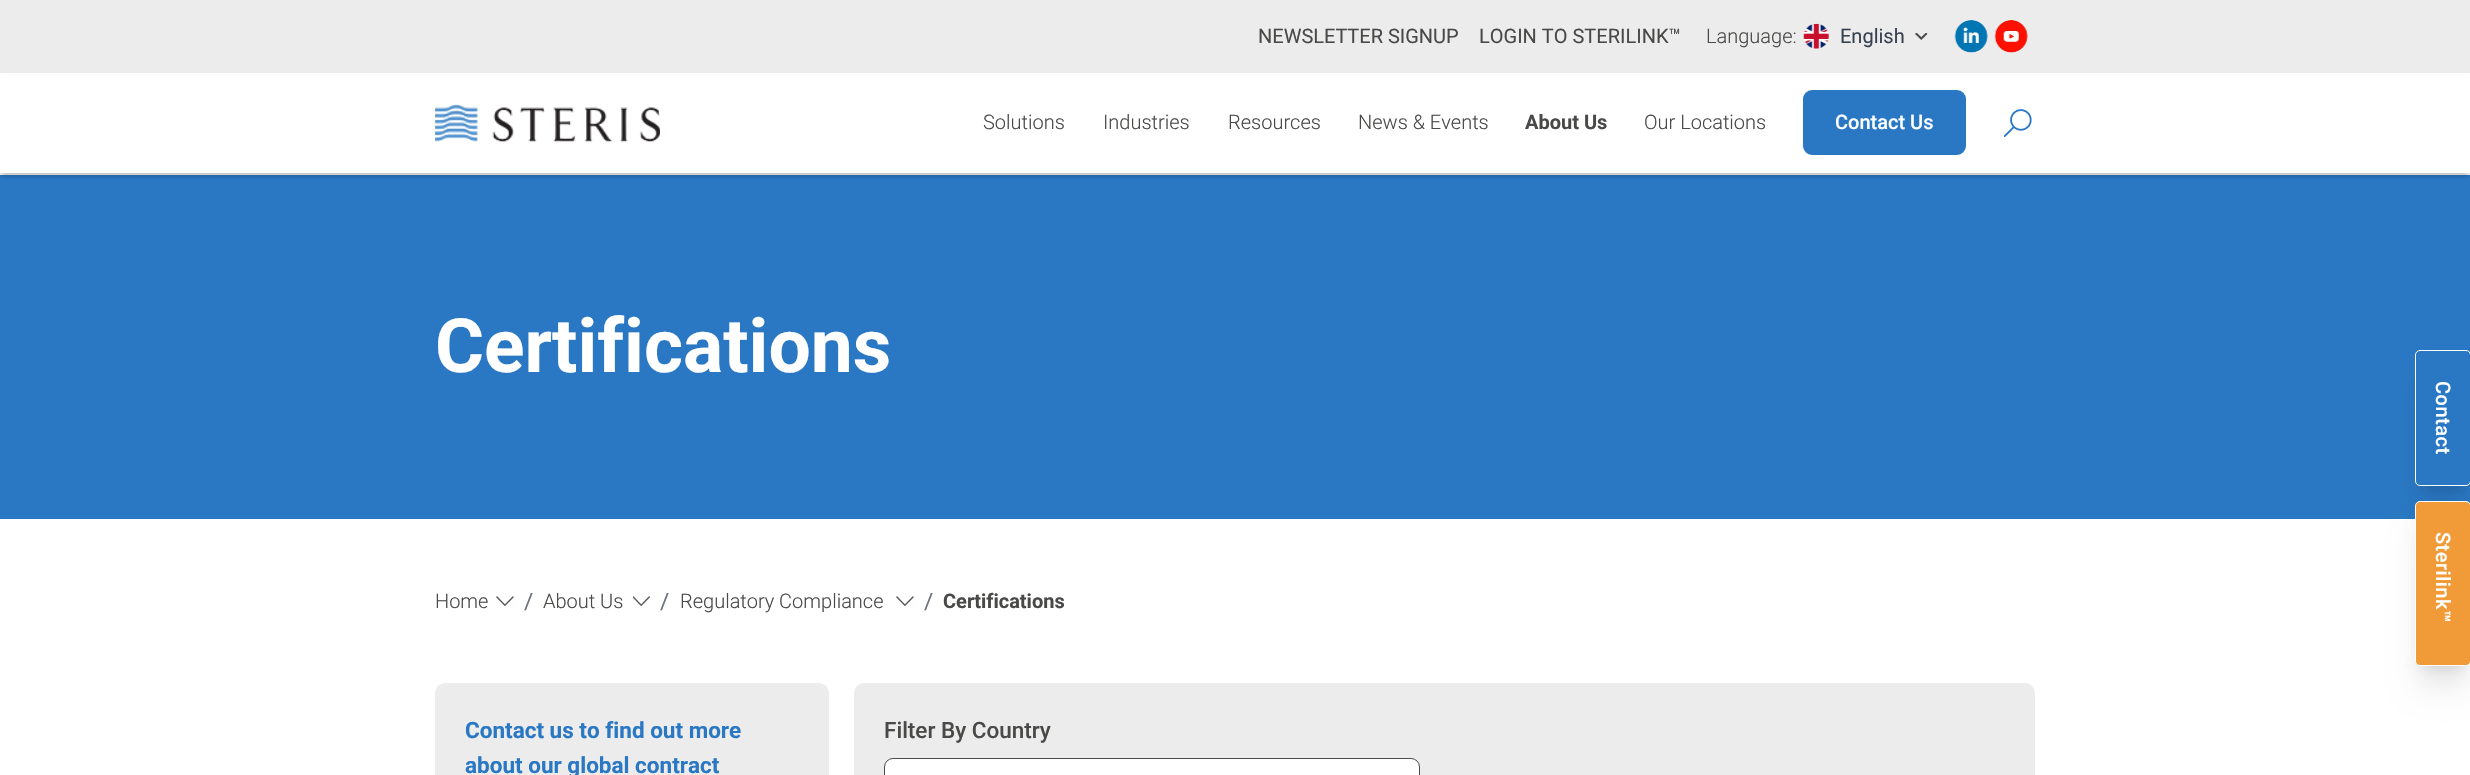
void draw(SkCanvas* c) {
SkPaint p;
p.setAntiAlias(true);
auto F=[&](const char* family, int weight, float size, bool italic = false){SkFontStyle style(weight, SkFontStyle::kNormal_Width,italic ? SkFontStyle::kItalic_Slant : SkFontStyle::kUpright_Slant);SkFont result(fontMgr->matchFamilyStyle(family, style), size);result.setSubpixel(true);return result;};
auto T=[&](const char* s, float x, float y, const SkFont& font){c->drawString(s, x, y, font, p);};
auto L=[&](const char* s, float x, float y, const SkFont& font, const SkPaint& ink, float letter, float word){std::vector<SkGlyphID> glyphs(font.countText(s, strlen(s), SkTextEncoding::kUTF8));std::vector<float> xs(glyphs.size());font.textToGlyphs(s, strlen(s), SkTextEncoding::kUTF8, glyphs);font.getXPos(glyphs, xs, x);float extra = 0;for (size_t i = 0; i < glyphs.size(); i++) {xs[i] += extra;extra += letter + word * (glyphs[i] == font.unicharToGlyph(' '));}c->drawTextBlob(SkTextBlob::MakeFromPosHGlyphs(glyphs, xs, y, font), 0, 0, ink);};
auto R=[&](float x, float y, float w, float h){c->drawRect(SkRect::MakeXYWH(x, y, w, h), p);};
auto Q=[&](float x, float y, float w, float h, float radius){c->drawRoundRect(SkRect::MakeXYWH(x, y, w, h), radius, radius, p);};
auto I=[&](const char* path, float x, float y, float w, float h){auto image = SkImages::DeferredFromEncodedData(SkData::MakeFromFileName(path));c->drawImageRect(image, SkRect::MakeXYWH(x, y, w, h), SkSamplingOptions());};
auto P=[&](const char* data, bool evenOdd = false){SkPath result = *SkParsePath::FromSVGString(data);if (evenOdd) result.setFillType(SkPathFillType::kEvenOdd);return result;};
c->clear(0xffffffff);
p.setColor(0xffececec);
R(0,0,2470,73);
auto f1 = F("Roboto",400,20);
p.setColor(0xff494948);
T("NEWSLETTER SIGNUP",1258,43,f1);
T("LOGIN TO STERILINK™",1479,43,f1);
auto f2 = F("Roboto",300,20);
T("Language:",1706,43,f2);
I("1.png",1803,23,26,26);
p.setColor(0xff374151);
T("English",1840,43,f1);
I("2.png",1915,33,13,7);
I("3.png",1954,20,34,33);
I("4.png",1994,20,34,33);
p.setColor(0xff2a78c4);
R(0,175,2470,344);
p.setColor(0x40000000);
p.setMaskFilter(SkMaskFilter::MakeBlur(kNormal_SkBlurStyle, 2.5));
c->drawRect(SkRect::MakeXYWH(1,79,2468,97),p);
p.setMaskFilter(nullptr);
p.setColor(0xffffffff);
R(0,75,2470,98);
I("5.png",435,104,225,38);
p.setColor(0xff494948);
T("Solutions",983,129,f2);
T("Industries",1103,129,f2);
T("Resources",1228,129,f2);
T("News & Events",1358,129,f2);
auto f3 = F("Roboto",700,20);
T("About Us",1525,129,f3);
T("Our Locations",1644,129,f2);
p.setColor(0xff2a78c4);
c->drawRoundRect(SkRect::MakeXYWH(1804.5,91.5,160,62),7.5,7.5,p);
p.setStroke(true);
p.setStrokeWidth(3);
c->drawRoundRect(SkRect::MakeXYWH(1804.5,91.5,160,62),7.5,7.5,p);
auto f4 = F("Roboto",500,20);
p.setStroke(false);
p.setColor(0xffffffff);
T("Contact Us",1835,129,f4);
I("6.png",2004,109,28,28);
auto f5 = F("Roboto",700,75);
T("Certifications",435,372,f5);
p.setColor(0xff494948);
T("Home",435,608,f2);
I("7.png",496,596,18,10);
auto f6 = F("Roboto",400,22.5);
p.setColor(0xff6b7280);
T("/",524,609,f6);
p.setColor(0xff494948);
T("About Us",543,608,f2);
I("8.png",633,596,17,10);
p.setColor(0xff6b7280);
T("/",660,609,f6);
p.setColor(0xff494948);
T("Regulatory Compliance",680,608,f2);
I("7.png",896,596,18,10);
p.setColor(0xff6b7280);
T("/",924,609,f6);
p.setColor(0xff494948);
T("Certifications",943,608,f3);
c->save();
c->clipRect(SkRect::MakeXYWH(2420,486,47,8));
p.setColor(0x1a000000);
p.setMaskFilter(SkMaskFilter::MakeBlur(kNormal_SkBlurStyle, 6));
c->drawRect(SkRect::MakeXYWH(2423,368,41,121),p);
p.setMaskFilter(nullptr);
c->restore();
c->save();
c->clipPath(P("M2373 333h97v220h-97zm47 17h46c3 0 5 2 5 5v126c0 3-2 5-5 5h-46c-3 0-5-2-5-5v-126c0-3 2-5 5-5z",true),true);
p.setMaskFilter(SkMaskFilter::MakeBlur(kNormal_SkBlurStyle, 15.5));
c->drawRect(SkRect::MakeXYWH(2421,381,44,124),p);
p.setMaskFilter(nullptr);
c->restore();
p.setStroke(true);
p.setStrokeWidth(1);
p.setColor(0xffffffff);
c->drawRoundRect(SkRect::MakeXYWH(2415.5,350.5,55,135),4.5,4.5,p);
p.setStroke(false);
c->save();
c->rotate(90,2436,381);
L("Contact",2436,381,f4,p,.5,0);
c->restore();
p.setColor(0x1a000000);
p.setMaskFilter(SkMaskFilter::MakeBlur(kNormal_SkBlurStyle, 6));
c->drawRect(SkRect::MakeXYWH(2423,519,41,150),p);
p.setMaskFilter(nullptr);
p.setMaskFilter(SkMaskFilter::MakeBlur(kNormal_SkBlurStyle, 15.5));
c->drawRect(SkRect::MakeXYWH(2421,533,44,152),p);
p.setMaskFilter(nullptr);
p.setColor(0xfff19a38);
c->drawRoundRect(SkRect::MakeXYWH(2415.5,501.5,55,164),4.5,4.5,p);
p.setStroke(true);
p.setColor(0xffffffff);
c->drawRoundRect(SkRect::MakeXYWH(2415.5,501.5,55,164),4.5,4.5,p);
p.setStroke(false);
c->save();
c->rotate(90,2436,532);
L("Sterilink™",2436,532,f4,p,.5,0);
c->restore();
p.setColor(0xffececec);
Q(435,683,394,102,10);
auto f7 = F("Roboto",700,22.5);
p.setColor(0xff2a78c4);
T("Contact us to find out more",465,738,f7);
T("about our global contract",465,773,f7);
p.setColor(0xffececec);
Q(854,683,1181,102,10);
auto f8 = F("Roboto",500,22.5);
p.setColor(0xff494948);
T("Filter By Country",884,738,f8);
p.setColor(0xffffffff);
c->drawRoundRect(SkRect::MakeXYWH(884.5,758.5,535,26),8.5,8.5,p);
p.setStroke(true);
p.setColor(0xff494948);
c->drawRoundRect(SkRect::MakeXYWH(884.5,758.5,535,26),8.5,8.5,p);
}
